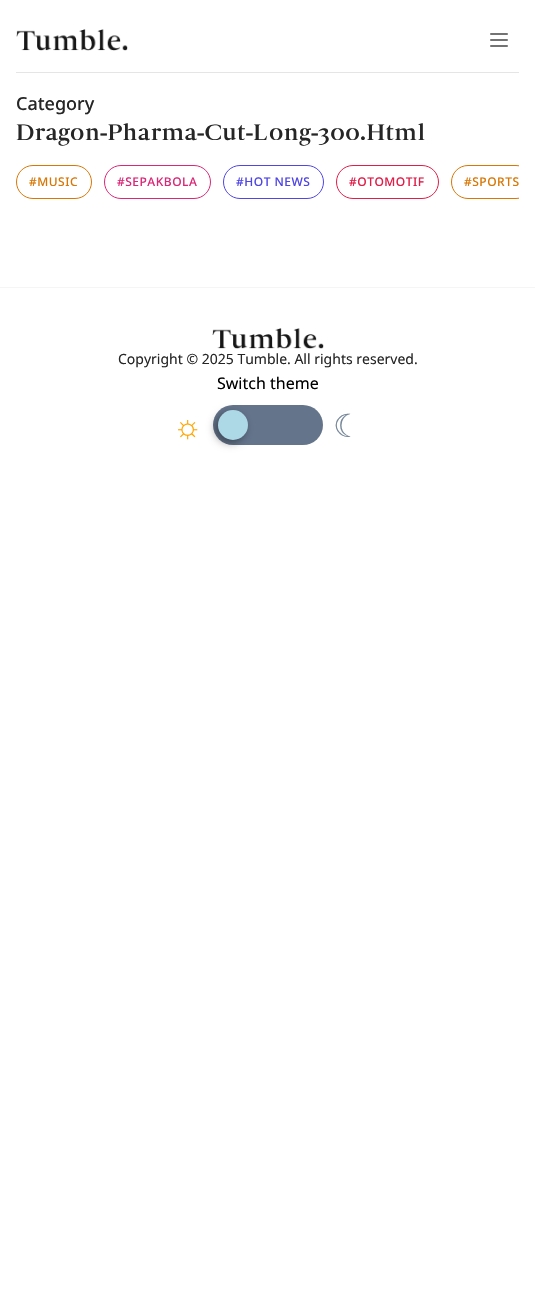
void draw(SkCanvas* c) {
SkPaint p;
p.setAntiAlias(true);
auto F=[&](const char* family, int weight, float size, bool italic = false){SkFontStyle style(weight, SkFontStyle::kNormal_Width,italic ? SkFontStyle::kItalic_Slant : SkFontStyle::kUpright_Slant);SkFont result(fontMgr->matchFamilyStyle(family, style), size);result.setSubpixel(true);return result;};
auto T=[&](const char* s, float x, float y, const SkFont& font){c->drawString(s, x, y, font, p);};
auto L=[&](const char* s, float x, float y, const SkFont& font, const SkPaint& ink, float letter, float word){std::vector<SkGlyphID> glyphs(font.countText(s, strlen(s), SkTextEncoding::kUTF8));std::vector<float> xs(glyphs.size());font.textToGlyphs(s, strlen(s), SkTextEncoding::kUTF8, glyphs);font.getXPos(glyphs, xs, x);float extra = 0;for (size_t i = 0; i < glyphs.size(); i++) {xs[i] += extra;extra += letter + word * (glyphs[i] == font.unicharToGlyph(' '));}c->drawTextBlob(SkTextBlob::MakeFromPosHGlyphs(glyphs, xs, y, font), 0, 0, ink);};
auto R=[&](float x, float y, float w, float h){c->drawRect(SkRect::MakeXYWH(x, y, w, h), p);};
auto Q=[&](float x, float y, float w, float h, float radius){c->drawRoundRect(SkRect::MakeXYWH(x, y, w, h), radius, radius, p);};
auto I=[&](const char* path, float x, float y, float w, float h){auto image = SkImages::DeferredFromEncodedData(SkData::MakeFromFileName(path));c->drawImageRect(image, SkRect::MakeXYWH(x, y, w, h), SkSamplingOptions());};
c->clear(0xffffffff);
p.setColor(0xffe5e5e5);
R(16,72,503,1);
I("1.png",16,29,112,22);
I("2.png",490,33,18,14);
auto f1 = F("Noto Sans",500,18);
p.setColor(0xff262626);
T("Category",16,110,f1);
auto f2 = F("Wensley",700,24);
T("Dragon-Pharma-Cut-Long-300.Html",16,140,f2);
p.setStroke(true);
p.setStrokeWidth(1);
p.setColor(0xffd97706);
c->drawRoundRect(SkRect::MakeXYWH(16.5,165.5,75,33),16.5,16.5,p);
auto f3 = F("Noto Sans",500,12);
p.setStroke(false);
L("#MUSIC",29,186,f3,p,.5,0);
p.setStroke(true);
p.setColor(0xffdb2777);
c->drawRoundRect(SkRect::MakeXYWH(104.5,165.5,106,33),16.5,16.5,p);
p.setStroke(false);
L("#SEPAKBOLA",117,186,f3,p,.5,0);
p.setStroke(true);
p.setColor(0xff4f46e5);
c->drawRoundRect(SkRect::MakeXYWH(223.5,165.5,100,33),16.5,16.5,p);
p.setStroke(false);
L("#HOT NEWS",236,186,f3,p,.5,0);
p.setStroke(true);
p.setColor(0xffe11d48);
c->drawRoundRect(SkRect::MakeXYWH(336.5,165.5,102,33),16.5,16.5,p);
p.setStroke(false);
L("#OTOMOTIF",349,186,f3,p,.5,0);
c->save();
c->clipRect(SkRect::MakeXYWH(16,165,503,34));
p.setStroke(true);
p.setColor(0xffd97706);
c->drawRoundRect(SkRect::MakeXYWH(451.5,165.5,81,33),16.5,16.5,p);
c->restore();
p.setStroke(false);
L("#SPORTS",464,186,f3,p,.5,0);
p.setColor(0xfff5f5f5);
R(0,287,535,1);
I("3.png",212,328,112,21);
auto f4 = F("Noto Sans",400,14);
p.setColor(0xff262626);
T("Copyright © 2025 Tumble. All rights reserved.",118,364,f4);
p.setColor(0xff64748b);
Q(213,405,110,40,20);
auto f5 = F("Noto Sans",400,16);
p.setColor(0xff000000);
T("Switch theme",217,389,f5);
p.setColor(0x66000000);
p.setMaskFilter(SkMaskFilter::MakeBlur(kNormal_SkBlurStyle, 4));
c->drawRoundRect(SkRect::MakeXYWH(215,413,30,30),15,15,p);
p.setMaskFilter(nullptr);
p.setColor(0xffadd8e6);
c->drawCircle(233,425,15,p);
auto f6 = F("Liberation Sans",400,32);
p.setColor(0xffffa500);
T("☼",173,437,f6);
auto f7 = F("DejaVu Sans",400,32);
p.setColor(0xff778899);
T("☾",333,437,f7);
}
